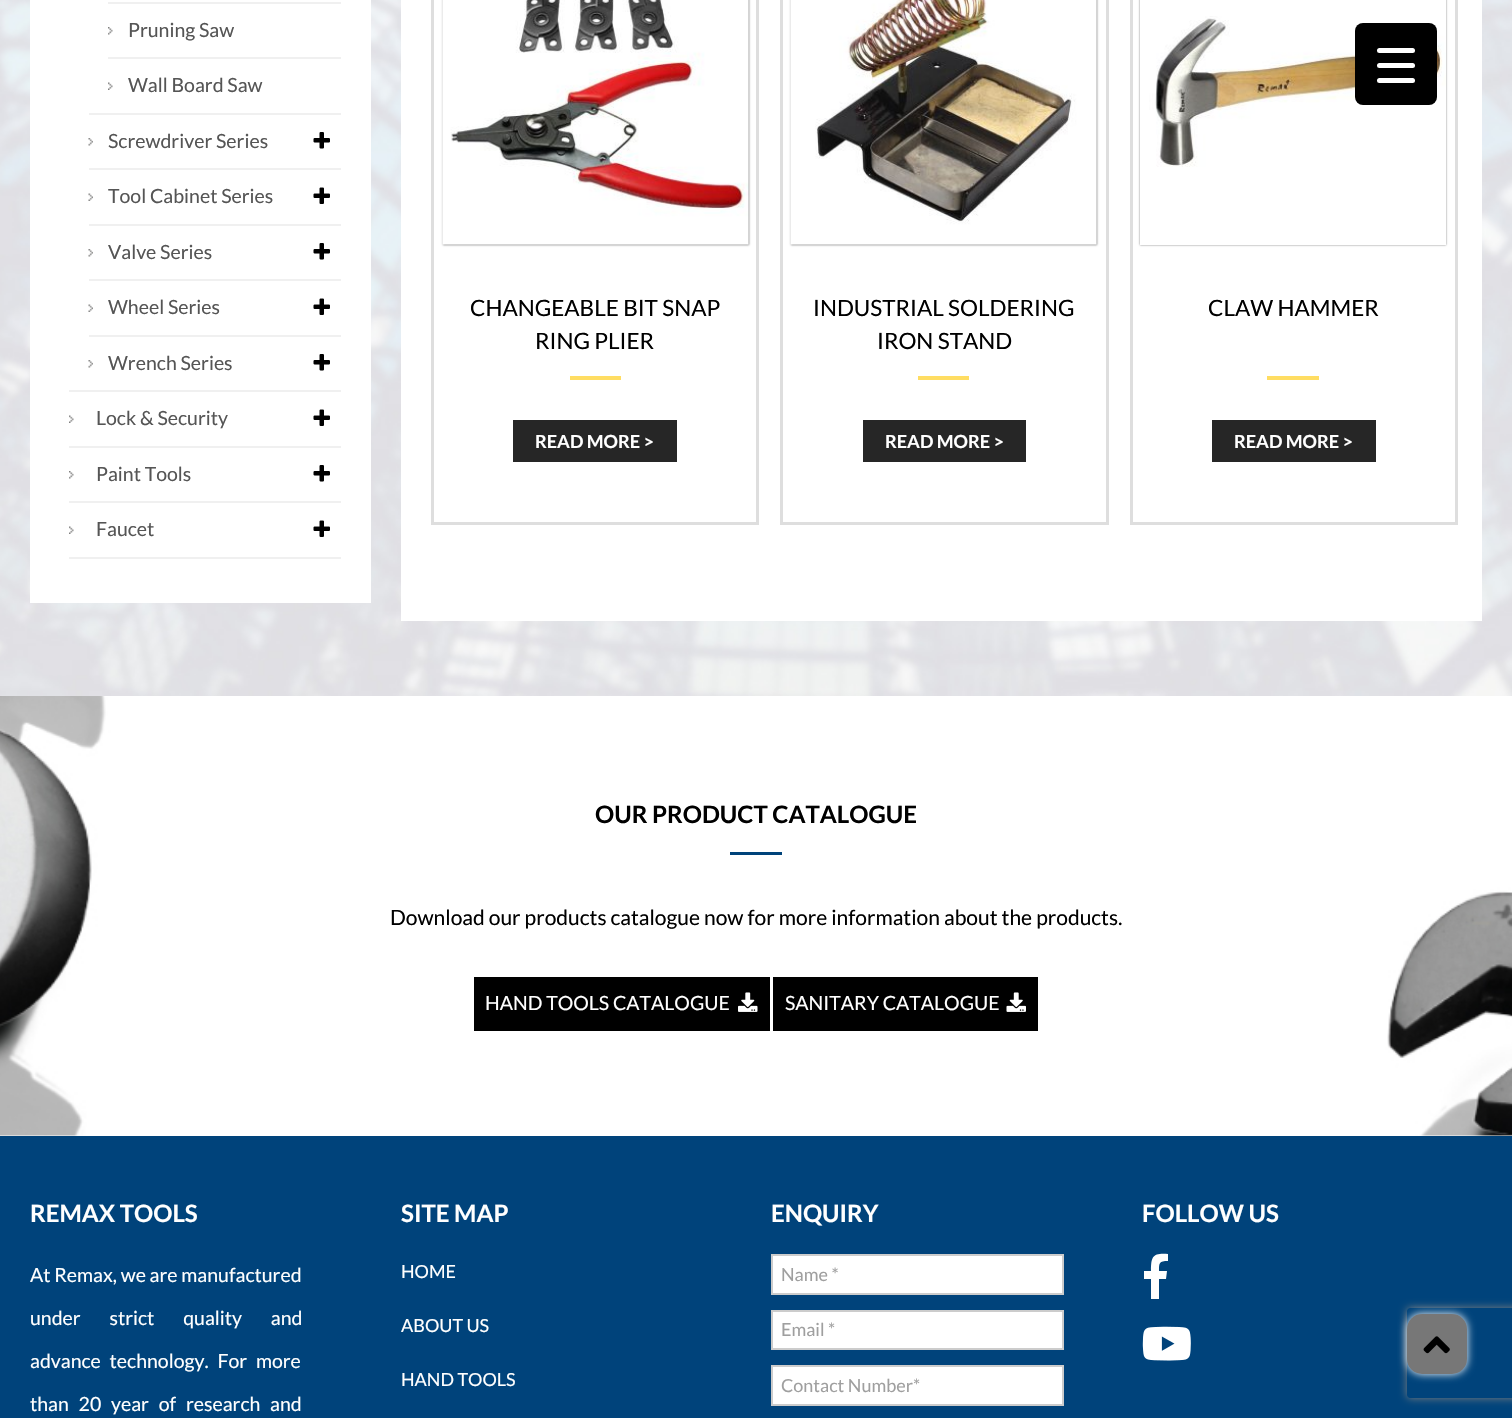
void draw(SkCanvas* c) {
SkPaint p;
p.setAntiAlias(true);
auto F=[&](const char* family, int weight, float size, bool italic = false){SkFontStyle style(weight, SkFontStyle::kNormal_Width,italic ? SkFontStyle::kItalic_Slant : SkFontStyle::kUpright_Slant);SkFont result(fontMgr->matchFamilyStyle(family, style), size);result.setSubpixel(true);return result;};
auto T=[&](const char* s, float x, float y, const SkFont& font){c->drawString(s, x, y, font, p);};
auto L=[&](const char* s, float x, float y, const SkFont& font, const SkPaint& ink, float letter, float word){std::vector<SkGlyphID> glyphs(font.countText(s, strlen(s), SkTextEncoding::kUTF8));std::vector<float> xs(glyphs.size());font.textToGlyphs(s, strlen(s), SkTextEncoding::kUTF8, glyphs);font.getXPos(glyphs, xs, x);float extra = 0;for (size_t i = 0; i < glyphs.size(); i++) {xs[i] += extra;extra += letter + word * (glyphs[i] == font.unicharToGlyph(' '));}c->drawTextBlob(SkTextBlob::MakeFromPosHGlyphs(glyphs, xs, y, font), 0, 0, ink);};
auto R=[&](float x, float y, float w, float h){c->drawRect(SkRect::MakeXYWH(x, y, w, h), p);};
auto Q=[&](float x, float y, float w, float h, float radius){c->drawRoundRect(SkRect::MakeXYWH(x, y, w, h), radius, radius, p);};
auto I=[&](const char* path, float x, float y, float w, float h){auto image = SkImages::DeferredFromEncodedData(SkData::MakeFromFileName(path));c->drawImageRect(image, SkRect::MakeXYWH(x, y, w, h), SkSamplingOptions());};
auto P=[&](const char* data, bool evenOdd = false){SkPath result = *SkParsePath::FromSVGString(data);if (evenOdd) result.setFillType(SkPathFillType::kEvenOdd);return result;};
c->clear(0xffffffff);
I("1.png",0,0,1512,696);
p.setColor(0xffffffff);
R(30,0,341,603);
p.setColor(0xfff0f0f0);
R(69,390,272,2);
R(89,113,252,2);
R(108,2,233,2);
I("2.png",108,27,5,8);
R(108,57,233,2);
auto f1 = F("Lato",400,19.5);
p.setColor(0xff555555);
T("Pruning Saw",128,37,f1);
I("3.png",108,82,5,8);
T("Wall Board Saw",128,92,f1);
I("4.png",88,138,5,8);
p.setColor(0xfff0f0f0);
R(89,168,252,2);
p.setColor(0xff555555);
T("Screwdriver Series",108,148,f1);
I("5.png",313,132,17,17);
I("6.png",88,193,5,8);
p.setColor(0xfff0f0f0);
R(89,224,252,2);
p.setColor(0xff555555);
T("Tool Cabinet Series",108,203,f1);
I("7.png",313,187,17,17);
I("4.png",88,249,5,8);
p.setColor(0xfff0f0f0);
R(89,279,252,2);
p.setColor(0xff555555);
T("Valve Series",108,259,f1);
I("5.png",313,243,17,17);
I("6.png",88,304,5,8);
p.setColor(0xfff0f0f0);
R(89,335,252,2);
p.setColor(0xff555555);
T("Wheel Series",108,314,f1);
I("7.png",313,298,17,17);
I("4.png",88,360,5,8);
T("Wrench Series",108,370,f1);
I("5.png",313,354,17,17);
I("3.png",69,415,5,8);
p.setColor(0xfff0f0f0);
R(69,446,272,2);
p.setColor(0xff555555);
T("Lock & Security",96,425,f1);
I("7.png",313,409,17,17);
I("2.png",69,471,5,8);
p.setColor(0xfff0f0f0);
R(69,501,272,2);
p.setColor(0xff555555);
T("Paint Tools",96,481,f1);
I("5.png",313,465,17,17);
I("3.png",69,526,5,8);
p.setColor(0xfff0f0f0);
R(69,557,272,2);
p.setColor(0xff555555);
T("Faucet",96,536,f1);
I("7.png",313,520,17,17);
p.setColor(0xffffffff);
R(401,0,1081,621);
p.setStroke(true);
p.setStrokeWidth(3);
p.setColor(0xffdedede);
c->drawRect(SkRect::MakeXYWH(432.5,-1.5,325,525),p);
p.setStroke(false);
p.setColor(0x80000000);
p.setMaskFilter(SkMaskFilter::MakeBlur(kNormal_SkBlurStyle, 1));
c->drawRect(SkRect::MakeXYWH(443,-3,306,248),p);
p.setMaskFilter(nullptr);
I("8.png",442,0,307,245);
p.setColor(0xffffdd62);
R(570,376,51,4);
auto f2 = F("Lato",400,22.5);
p.setColor(0xff000000);
T("CHANGEABLE BIT SNAP",470,316,f2);
T("RING PLIER",535,349,f2);
p.setColor(0xff262626);
R(513,420,164,42);
auto f3 = F("Lato",700,18);
p.setColor(0xffffffff);
T("READ MORE >",535,448,f3);
p.setStroke(true);
p.setColor(0xffdedede);
c->drawRect(SkRect::MakeXYWH(781.5,-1.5,326,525),p);
p.setStroke(false);
p.setColor(0x80000000);
p.setMaskFilter(SkMaskFilter::MakeBlur(kNormal_SkBlurStyle, 1));
c->drawRect(SkRect::MakeXYWH(791,-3,306,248),p);
p.setMaskFilter(nullptr);
I("9.png",790,0,307,245);
p.setColor(0xffffdd62);
R(918,376,51,4);
p.setColor(0xff000000);
T("INDUSTRIAL SOLDERING",813,316,f2);
T("IRON STAND",877,349,f2);
p.setColor(0xff262626);
R(863,420,163,42);
p.setColor(0xffffffff);
T("READ MORE >",885,448,f3);
p.setStroke(true);
p.setColor(0xffdedede);
c->drawRect(SkRect::MakeXYWH(1131.5,-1.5,325,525),p);
c->save();
c->clipPath(P("M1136 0h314v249h-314zm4-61h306v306h-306z",true),true);
p.setStroke(false);
p.setColor(0x80000000);
p.setMaskFilter(SkMaskFilter::MakeBlur(kNormal_SkBlurStyle, 1));
c->drawRect(SkRect::MakeXYWH(1140,-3,306,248),p);
p.setMaskFilter(nullptr);
c->restore();
I("10.png",1140,16,306,229);
p.setColor(0xffffdd62);
R(1267,376,52,4);
p.setColor(0xff000000);
T("CLAW HAMMER",1208,316,f2);
p.setColor(0xff262626);
R(1212,420,164,42);
p.setColor(0xffffffff);
T("READ MORE >",1234,448,f3);
I("11.png",0,696,1512,440);
p.setColor(0xff00437a);
R(730,852,52,3);
auto f4 = F("Lato",700,24);
p.setColor(0xff000000);
T("OUR PRODUCT CATALOGUE",595,823,f4);
auto f5 = F("Lato",400,21);
T("Download our products catalogue now for more information about the products.",390,925,f5);
R(474,977,296,54);
p.setColor(0xffffffff);
T("HAND TOOLS CATALOGUE",485,1010,f1);
I("12.png",738,992,20,20);
p.setColor(0xff000000);
R(773,977,265,54);
p.setColor(0xffffffff);
T("SANITARY CATALOGUE",785,1010,f1);
I("13.png",1006,992,20,20);
p.setColor(0xff00437b);
R(0,1136,1512,282);
p.setColor(0xffffffff);
T("REMAX TOOLS",30,1222,f4);
T("At Remax, we are manufactured",30,1282,f1);
L("under strict quality and",30,1325,f1,p,0,25);
L("advance technology. For more",30,1368,f1,p,0,5);
L("than 20 year of research and",30,1411,f1,p,0,6);
T("SITE MAP",401,1222,f4);
auto f6 = F("Lato",400,18);
T("HOME",401,1278,f6);
T("ABOUT US",401,1332,f6);
T("HAND TOOLS",401,1386,f6);
T("ENQUIRY",771,1222,f4);
c->drawRect(SkRect::MakeXYWH(772,1255,291,39),p);
p.setStroke(true);
p.setStrokeWidth(2);
p.setColor(0xffcccccc);
c->drawRect(SkRect::MakeXYWH(772,1255,291,39),p);
p.setStroke(false);
p.setColor(0xff9f9f9f);
T("Name *",781,1281,f6);
p.setColor(0xffffffff);
c->drawRect(SkRect::MakeXYWH(772,1311,291,38),p);
p.setStroke(true);
p.setColor(0xffcccccc);
c->drawRect(SkRect::MakeXYWH(772,1311,291,38),p);
p.setStroke(false);
p.setColor(0xff9f9f9f);
T("Email *",781,1336,f6);
p.setColor(0xffffffff);
c->drawRect(SkRect::MakeXYWH(772,1366,291,39),p);
p.setStroke(true);
p.setColor(0xffcccccc);
c->drawRect(SkRect::MakeXYWH(772,1366,291,39),p);
p.setStroke(false);
p.setColor(0xff9f9f9f);
T("Contact Number*",781,1392,f6);
p.setColor(0xffffffff);
T("FOLLOW US",1142,1222,f4);
c->drawPath(P("M1166 1279h-7v20h-8v-20h-7v-8h7c0-15 2-18 17-17v7c-9 0-9 2-9 10h8z"),p);
I("14.png",1142,1326,49,35);
p.setColor(0xff000000);
Q(1355,23,82,82,8);
p.setColor(0xffffffff);
Q(1377,63,38,5,2.5);
Q(1377,48,38,5,2.5);
Q(1377,78,38,5,2.5);
c->save();
c->clipPath(P("M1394 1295h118v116h-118zm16 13h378c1.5 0 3 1.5 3 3v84c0 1.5-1.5 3-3 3h-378c-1.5 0-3-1.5-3-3v-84c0-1.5 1.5-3 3-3z",true),true);
p.setColor(0xff808080);
p.setMaskFilter(SkMaskFilter::MakeBlur(kNormal_SkBlurStyle, 4));
c->drawRoundRect(SkRect::MakeXYWH(1407,1308,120,90),3,3,p);
p.setMaskFilter(nullptr);
c->restore();
p.setColor(0xffffffff);
p.setMaskFilter(SkMaskFilter::MakeBlur(kNormal_SkBlurStyle, 4));
c->drawRoundRect(SkRect::MakeXYWH(1407,1314,60,60),15,15,p);
p.setMaskFilter(nullptr);
p.setColor(0xff777777);
Q(1407,1314,60,60,15);
I("15.png",1423,1336,27,18);
}
